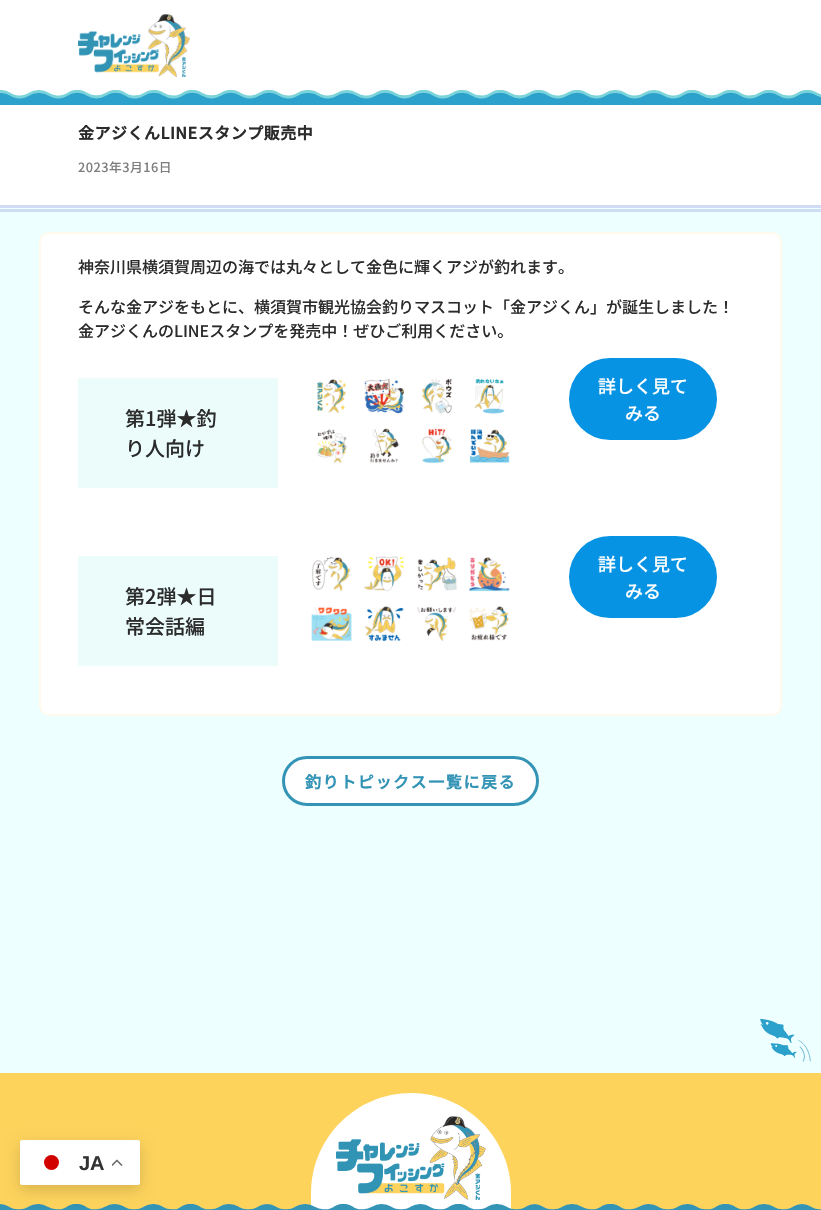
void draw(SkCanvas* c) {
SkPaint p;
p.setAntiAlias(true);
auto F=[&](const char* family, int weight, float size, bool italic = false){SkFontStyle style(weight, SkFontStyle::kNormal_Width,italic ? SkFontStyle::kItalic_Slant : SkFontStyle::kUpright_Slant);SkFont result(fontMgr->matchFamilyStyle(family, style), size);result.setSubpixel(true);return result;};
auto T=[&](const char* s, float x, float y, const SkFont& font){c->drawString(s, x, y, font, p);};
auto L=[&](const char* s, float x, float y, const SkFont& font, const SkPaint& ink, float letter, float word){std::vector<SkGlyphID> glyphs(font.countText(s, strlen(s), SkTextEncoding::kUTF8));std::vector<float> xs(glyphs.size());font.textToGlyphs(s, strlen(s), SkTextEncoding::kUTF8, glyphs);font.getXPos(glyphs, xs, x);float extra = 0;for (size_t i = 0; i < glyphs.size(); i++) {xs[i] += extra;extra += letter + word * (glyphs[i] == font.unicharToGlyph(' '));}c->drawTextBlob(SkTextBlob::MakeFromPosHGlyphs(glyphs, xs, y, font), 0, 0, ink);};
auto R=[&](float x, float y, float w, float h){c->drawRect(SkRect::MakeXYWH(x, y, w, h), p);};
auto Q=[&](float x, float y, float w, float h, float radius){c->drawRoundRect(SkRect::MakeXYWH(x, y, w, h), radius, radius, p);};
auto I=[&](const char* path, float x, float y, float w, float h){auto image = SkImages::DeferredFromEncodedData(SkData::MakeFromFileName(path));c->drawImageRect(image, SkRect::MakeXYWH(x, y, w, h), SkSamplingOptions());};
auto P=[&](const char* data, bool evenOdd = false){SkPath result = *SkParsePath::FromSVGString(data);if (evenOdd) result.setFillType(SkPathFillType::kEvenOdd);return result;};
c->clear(0xffffffff);
I("1.png",78,14,112,63);
I("2.png",0,90,821,15);
p.setColor(0xffeeffff);
R(0,208,821,865);
auto f1 = F("Noto Sans JP",700,16);
p.setColor(0xff2b2b2b);
L("金アジくんLINEスタンプ販売中",78,139,f1,p,.5,0);
auto f2 = F("Noto Sans JP",100,12.75);
p.setColor(0xff7e7e7e);
L("2023年3月16日",78,172,f2,p,.5,0);
p.setColor(0xffd0dcf3);
R(0,205,821,3);
R(0,209,821,3);
p.setColor(0xffffffff);
c->drawRoundRect(SkRect::MakeXYWH(40,233,741,482),9,9,p);
p.setStroke(true);
p.setStrokeWidth(2);
p.setColor(0xfffffaec);
c->drawRoundRect(SkRect::MakeXYWH(40,233,741,482),9,9,p);
auto f3 = F("Noto Sans JP",100,16);
p.setStroke(false);
p.setColor(0xff2b2b2b);
T("神奈川県横須賀周辺の海では丸々として金色に輝くアジが釣れます。",78,273,f3);
T("そんな金アジをもとに、横須賀市観光協会釣りマスコット「金アジくん」が誕生しました！",78,313,f3);
T("金アジくんのLINEスタンプを発売中！ぜひご利用ください。",78,337,f3);
p.setColor(0xffebfcfb);
R(78,378,200,110);
auto f4 = F("Noto Sans JP",100,20);
p.setColor(0xff2b2b2b);
T("第1弾★釣",125,426,f4);
T("り人向け",125,456,f4);
I("3.png",317,378,193,86);
p.setColor(0xff0693e3);
Q(569,358,148,82,41);
auto f5 = F("Noto Sans JP",100,18);
p.setColor(0xffffffff);
T("詳しく見て",598,393,f5);
T("みる",625,420,f5);
p.setColor(0xffebfcfb);
R(78,556,200,110);
p.setColor(0xff2b2b2b);
T("第2弾★日",125,604,f4);
T("常会話編",125,634,f4);
I("4.png",311,556,199,86);
p.setColor(0xff0693e3);
Q(569,536,148,82,41);
p.setColor(0xffffffff);
T("詳しく見て",598,571,f5);
T("みる",625,598,f5);
c->drawRoundRect(SkRect::MakeXYWH(283.5,757.5,254,47),23.5,23.5,p);
p.setStroke(true);
p.setStrokeWidth(3);
p.setColor(0xff3494b6);
c->drawRoundRect(SkRect::MakeXYWH(283.5,757.5,254,47),23.5,23.5,p);
p.setStroke(false);
L("釣りトピックス一覧に戻る",305,788,f1,p,1.6,0);
p.setColor(0xfffdd35c);
R(0,1073,821,137);
I("5.png",760,1018,51,44);
p.setColor(0xffffffff);
c->drawPath(P("M411 1093c55 0 100 45 100 100v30h-200v-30c0-55 45-100 100-100z"),p);
I("6.png",336,1116,150,84);
I("7.png",0,1204,821,6);
p.setColor(0x26000000);
p.setMaskFilter(SkMaskFilter::MakeBlur(kNormal_SkBlurStyle, 7.5));
c->drawRoundRect(SkRect::MakeXYWH(20,1145,120,45),2,2,p);
p.setMaskFilter(nullptr);
p.setColor(0xffffffff);
Q(20,1140,120,45,2);
p.setColor(0xffd30000);
c->drawCircle(51.5,1162.5,7.5,p);
auto f6 = F("Liberation Sans",700,20);
p.setColor(0xff333333);
T("JA",79,1170,f6);
I("8.png",112,1159,11,7);
}
